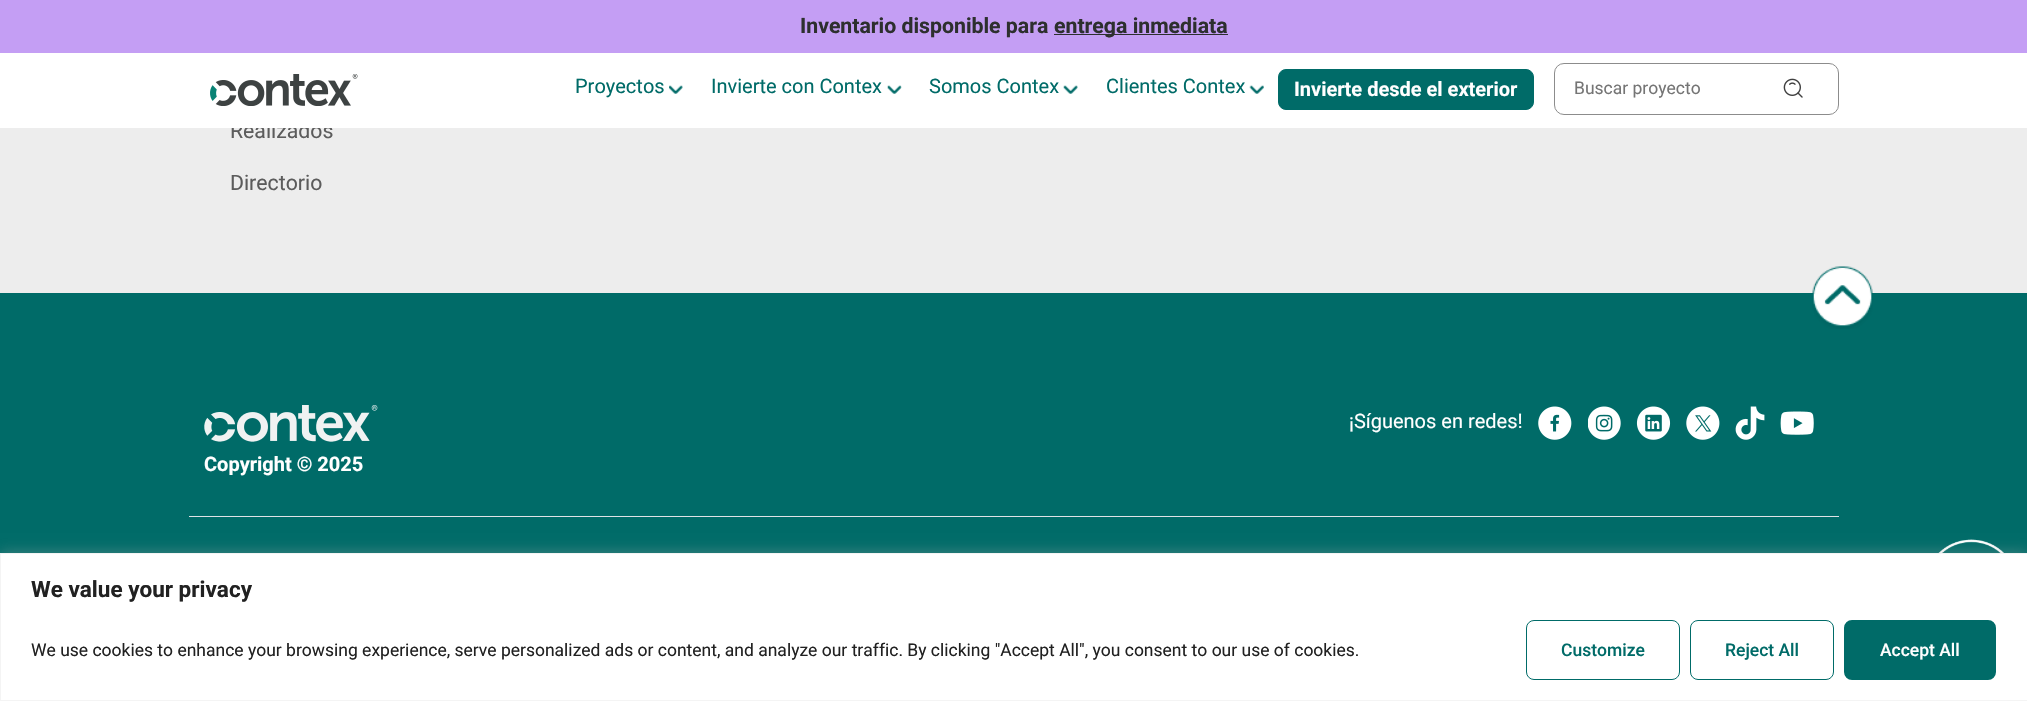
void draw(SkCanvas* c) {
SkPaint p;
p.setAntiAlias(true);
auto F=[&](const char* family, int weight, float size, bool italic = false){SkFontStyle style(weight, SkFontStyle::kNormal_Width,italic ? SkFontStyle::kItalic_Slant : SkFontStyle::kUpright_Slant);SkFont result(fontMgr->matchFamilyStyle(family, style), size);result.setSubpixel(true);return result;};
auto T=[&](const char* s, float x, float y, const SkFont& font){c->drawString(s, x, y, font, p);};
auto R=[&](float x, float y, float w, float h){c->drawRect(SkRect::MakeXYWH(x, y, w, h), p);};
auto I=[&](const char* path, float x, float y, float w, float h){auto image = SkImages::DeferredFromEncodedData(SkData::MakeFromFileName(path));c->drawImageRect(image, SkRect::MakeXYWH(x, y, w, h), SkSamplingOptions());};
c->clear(0xffededed);
p.setColor(0xffc49ef4);
R(0,0,2027,53);
auto f1 = F("Roboto",700,21.25);
p.setColor(0xff2d2f2e);
T("Inventario disponible para",800,33,f1);
R(1054,34,174,1);
T("entrega inmediata",1054,33,f1);
auto f2 = F("Roboto",400,21.25);
p.setColor(0xff5c5c5c);
T("Realizados",230,138,f2);
p.setColor(0xffffffff);
R(0,53,2027,75);
I("1.png",210,74,148,32);
auto f3 = F("Roboto",400,20);
p.setColor(0xff006b68);
T("Proyectos",575,93,f3);
I("2.png",669,85,14,9);
T("Invierte con Contex",711,93,f3);
I("3.png",887,85,15,9);
T("Somos Contex",929,93,f3);
I("4.png",1063,85,15,9);
T("Clientes Contex",1106,93,f3);
I("5.png",1249,85,15,9);
c->drawRoundRect(SkRect::MakeXYWH(1278.5,69.5,255,40),7.5,7.5,p);
p.setStroke(true);
p.setStrokeWidth(1);
c->drawRoundRect(SkRect::MakeXYWH(1278.5,69.5,255,40),7.5,7.5,p);
auto f4 = F("Roboto",700,20);
p.setStroke(false);
p.setColor(0xffffffff);
T("Invierte desde el exterior",1294,96,f4);
p.setStroke(true);
p.setColor(0xff8c8c8c);
c->drawRoundRect(SkRect::MakeXYWH(1554.5,63.5,284,51),9.5,9.5,p);
auto f5 = F("Roboto",400,17.5);
p.setStroke(false);
p.setColor(0xff757575);
T("Buscar proyecto",1574,94,f5);
I("6.png",1783,78,20,20);
p.setColor(0xff5c5c5c);
T("Directorio",230,190,f2);
p.setColor(0xff006b68);
R(0,293,2027,260);
I("7.png",1812,266,61,63);
p.setColor(0xffffffff);
T("¡Síguenos en redes!",1349,428,f3);
I("8.png",1538,406,34,34);
I("9.png",1588,406,33,34);
I("10.png",1636,406,35,34);
I("11.png",1686,406,34,34);
I("12.png",1735,406,30,34);
I("13.png",1780,411,34,24);
I("14.png",204,405,174,37);
T("Copyright © 2025",204,471,f4);
p.setColor(0xffdee2e6);
R(189,516,1650,1);
I("15.png",1938,539,66,14);
p.setColor(0x4dacabab);
p.setMaskFilter(SkMaskFilter::MakeBlur(kNormal_SkBlurStyle, 6));
c->drawRect(SkRect::MakeXYWH(0,551,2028,149),p);
p.setMaskFilter(nullptr);
p.setColor(0xffffffff);
c->drawRect(SkRect::MakeXYWH(.5,553.5,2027,147),p);
p.setStroke(true);
p.setColor(0xfff4f4f4);
c->drawRect(SkRect::MakeXYWH(.5,553.5,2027,147),p);
auto f6 = F("Roboto",700,22.5);
p.setStroke(false);
p.setColor(0xff212121);
T("We value your privacy",31,597,f6);
T("We use cookies to enhance your browsing experience, serve personalized ads or content, and analyze our traffic. By clicking \"Accept All\", you consent to our use of cookies.",31,656,f5);
p.setStroke(true);
p.setColor(0xff006b68);
c->drawRoundRect(SkRect::MakeXYWH(1526.5,620.5,153,59),7.5,7.5,p);
auto f7 = F("Roboto",500,17.5);
p.setStroke(false);
T("Customize",1561,656,f7);
p.setStroke(true);
c->drawRoundRect(SkRect::MakeXYWH(1690.5,620.5,143,59),7.5,7.5,p);
p.setStroke(false);
T("Reject All",1725,656,f7);
c->drawRoundRect(SkRect::MakeXYWH(1845.5,621.5,149,57),6.5,6.5,p);
p.setStroke(true);
p.setStrokeWidth(3);
c->drawRoundRect(SkRect::MakeXYWH(1845.5,621.5,149,57),6.5,6.5,p);
p.setStroke(false);
p.setColor(0xffffffff);
T("Accept All",1880,656,f7);
}
